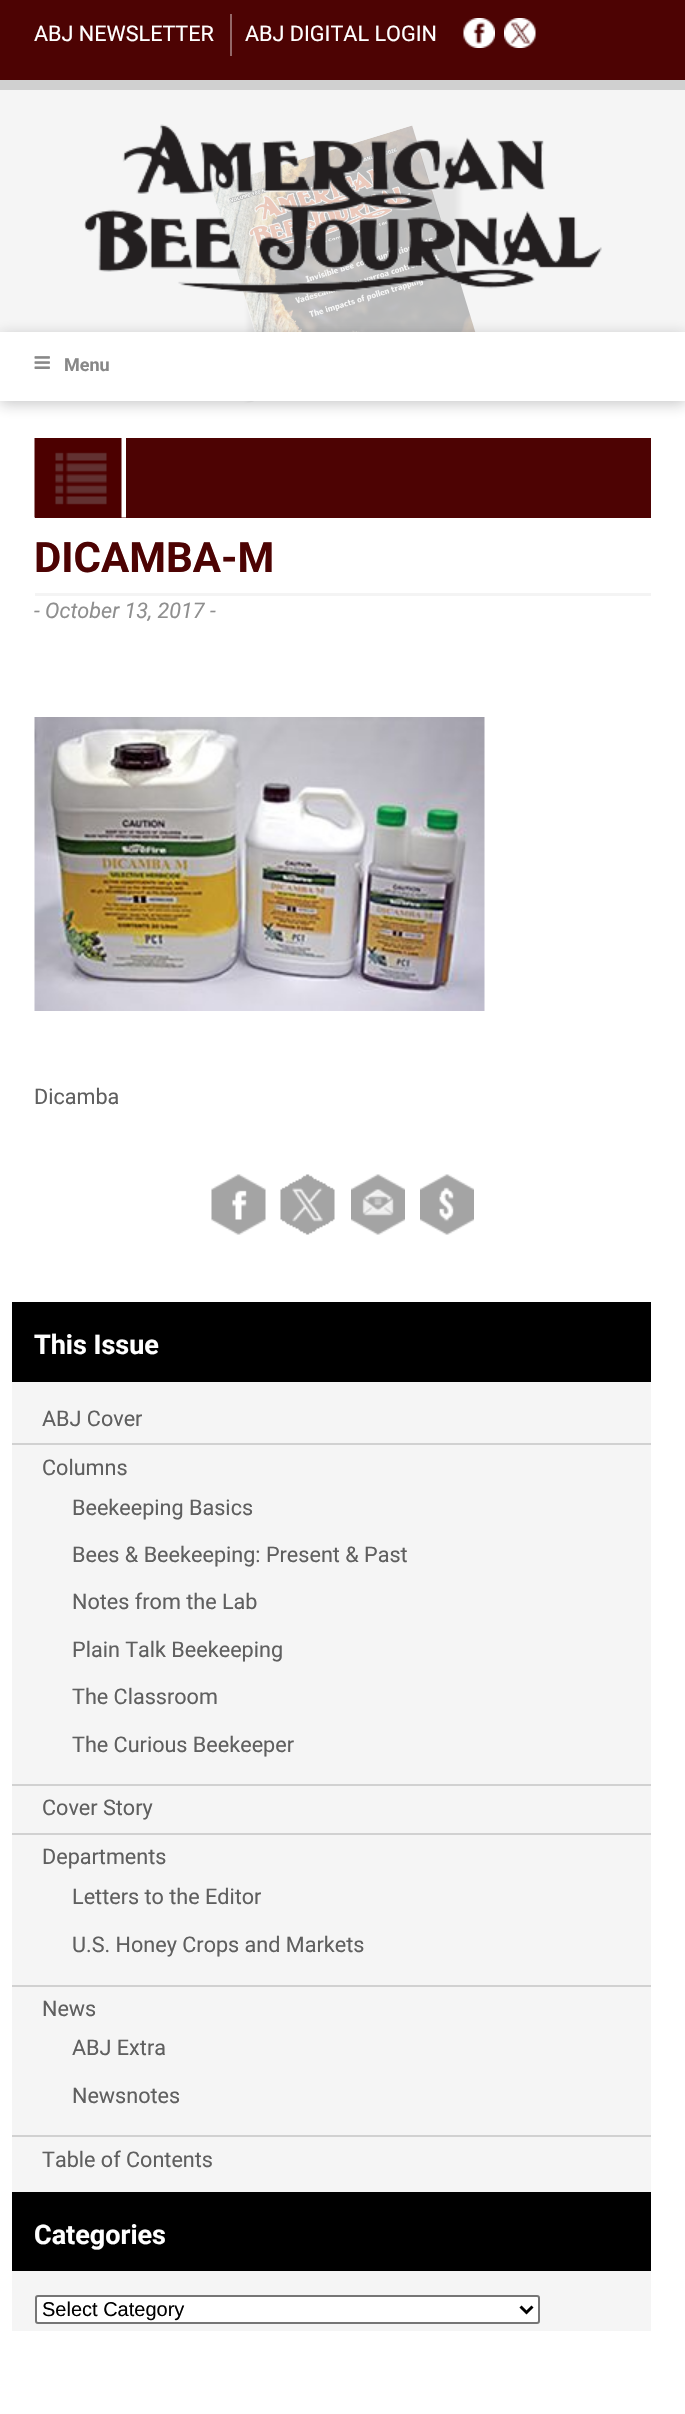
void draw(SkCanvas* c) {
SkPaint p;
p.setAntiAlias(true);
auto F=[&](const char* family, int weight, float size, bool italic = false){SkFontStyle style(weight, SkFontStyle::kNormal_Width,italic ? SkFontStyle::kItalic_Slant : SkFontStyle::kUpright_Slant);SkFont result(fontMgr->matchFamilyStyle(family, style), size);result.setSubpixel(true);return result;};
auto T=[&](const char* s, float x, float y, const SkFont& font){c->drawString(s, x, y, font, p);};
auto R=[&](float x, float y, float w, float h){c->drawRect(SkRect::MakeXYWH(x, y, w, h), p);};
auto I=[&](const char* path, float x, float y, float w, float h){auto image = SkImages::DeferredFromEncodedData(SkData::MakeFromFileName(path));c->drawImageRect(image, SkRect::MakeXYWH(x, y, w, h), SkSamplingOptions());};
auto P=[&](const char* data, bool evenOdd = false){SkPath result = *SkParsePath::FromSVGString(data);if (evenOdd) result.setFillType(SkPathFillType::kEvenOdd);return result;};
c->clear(0xffffffff);
p.setColor(0xff4d0303);
R(0,0,685,80);
p.setColor(0xffd0d0d0);
R(0,80,685,10);
p.setColor(0xff946868);
R(230,14,2,42);
auto f1 = F("Roboto",400,21.6);
p.setColor(0xffffffff);
T("ABJ NEWSLETTER",34,41,f1);
T("ABJ DIGITAL LOGIN",245,41,f1);
I("1.png",463,18,32,30);
I("2.png",504,18,32,30);
p.setColor(0xfff5f5f5);
R(0,90,685,242);
c->save();
c->clipPath(P("M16 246.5l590-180.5l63.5 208l-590 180.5z"),true);
c->clipPath(P("M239 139h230v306h-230zm-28.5 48l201-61.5l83.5 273l-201 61.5z",true),true);
p.setColor(0x141e1e1f);
p.setMaskFilter(SkMaskFilter::MakeBlur(kNormal_SkBlurStyle, 3));
c->drawRect(SkRect::MakeXYWH(249,149,210,286),p);
p.setMaskFilter(nullptr);
c->restore();
I("4.png",212,125,264,207);
I("3.png",84,124,518,171);
p.setColor(0x401d1d1e);
p.setMaskFilter(SkMaskFilter::MakeBlur(kNormal_SkBlurStyle, 7));
c->drawRect(SkRect::MakeXYWH(0,335,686,69),p);
p.setMaskFilter(nullptr);
p.setColor(0xffffffff);
R(0,332,685,69);
I("5.png",34,356,16,13);
auto f2 = F("Roboto",700,18);
p.setColor(0xff888888);
T("Menu",64,371,f2);
p.setColor(0xff4d0303);
R(35,438,616,80);
I("6.png",34,438,92,80);
p.setColor(0xfff4f4f4);
R(35,593,616,3);
auto f3 = F("Roboto",700,42);
p.setColor(0xff4d0303);
T("DICAMBA-M",34,572,f3);
auto f4 = F("Roboto",400,21.6,true);
p.setColor(0xff8f8f8f);
T("- October 13, 2017 -",34,618,f4);
I("7.png",34,717,451,294);
p.setColor(0xff5f5f5f);
T("Dicamba",34,1104,f1);
I("8.png",211,1174,55,61);
I("9.png",280,1174,55,61);
I("10.png",351,1174,54,61);
I("11.png",420,1174,54,61);
p.setColor(0xfff5f5f5);
R(12,1382,639,949);
p.setColor(0xff000000);
R(12,1302,639,80);
auto f5 = F("Roboto",700,27);
p.setColor(0xffffffff);
T("This Issue",34,1354,f5);
p.setColor(0xffd1d1d1);
R(12,1443,639,2);
p.setColor(0xff5f5f5f);
T("ABJ Cover",42,1426,f1);
p.setColor(0xffd1d1d1);
R(12,1784,639,2);
p.setColor(0xff5f5f5f);
T("Columns",42,1475,f1);
T("Beekeeping Basics",72,1515,f1);
T("Bees & Beekeeping: Present & Past",72,1562,f1);
T("Notes from the Lab",72,1609,f1);
T("Plain Talk Beekeeping",72,1657,f1);
T("The Classroom",72,1704,f1);
T("The Curious Beekeeper",72,1752,f1);
p.setColor(0xffd1d1d1);
R(12,1833,639,2);
p.setColor(0xff5f5f5f);
T("Cover Story",42,1815,f1);
p.setColor(0xffd1d1d1);
R(12,1985,639,2);
p.setColor(0xff5f5f5f);
T("Departments",42,1864,f1);
T("Letters to the Editor",72,1904,f1);
T("U.S. Honey Crops and Markets",72,1952,f1);
p.setColor(0xffd1d1d1);
R(12,2135,639,2);
p.setColor(0xff5f5f5f);
T("News",42,2016,f1);
T("ABJ Extra",72,2055,f1);
T("Newsnotes",72,2103,f1);
T("Table of Contents",42,2167,f1);
p.setColor(0xff000000);
R(12,2192,639,79);
p.setColor(0xffffffff);
T("Categories",34,2244,f5);
c->drawRoundRect(SkRect::MakeXYWH(36,2296,503,27),2,2,p);
p.setStroke(true);
p.setStrokeWidth(2);
p.setColor(0xff767676);
c->drawRoundRect(SkRect::MakeXYWH(36,2296,503,27),2,2,p);
p.setStrokeWidth(3);
p.setColor(0xff000000);
c->drawPath(P("M520.5 2306.5l6 6l6-6"),p);
auto f6 = F("Liberation Sans",400,20);
p.setStroke(false);
T("Select Category",42,2316,f6);
}
